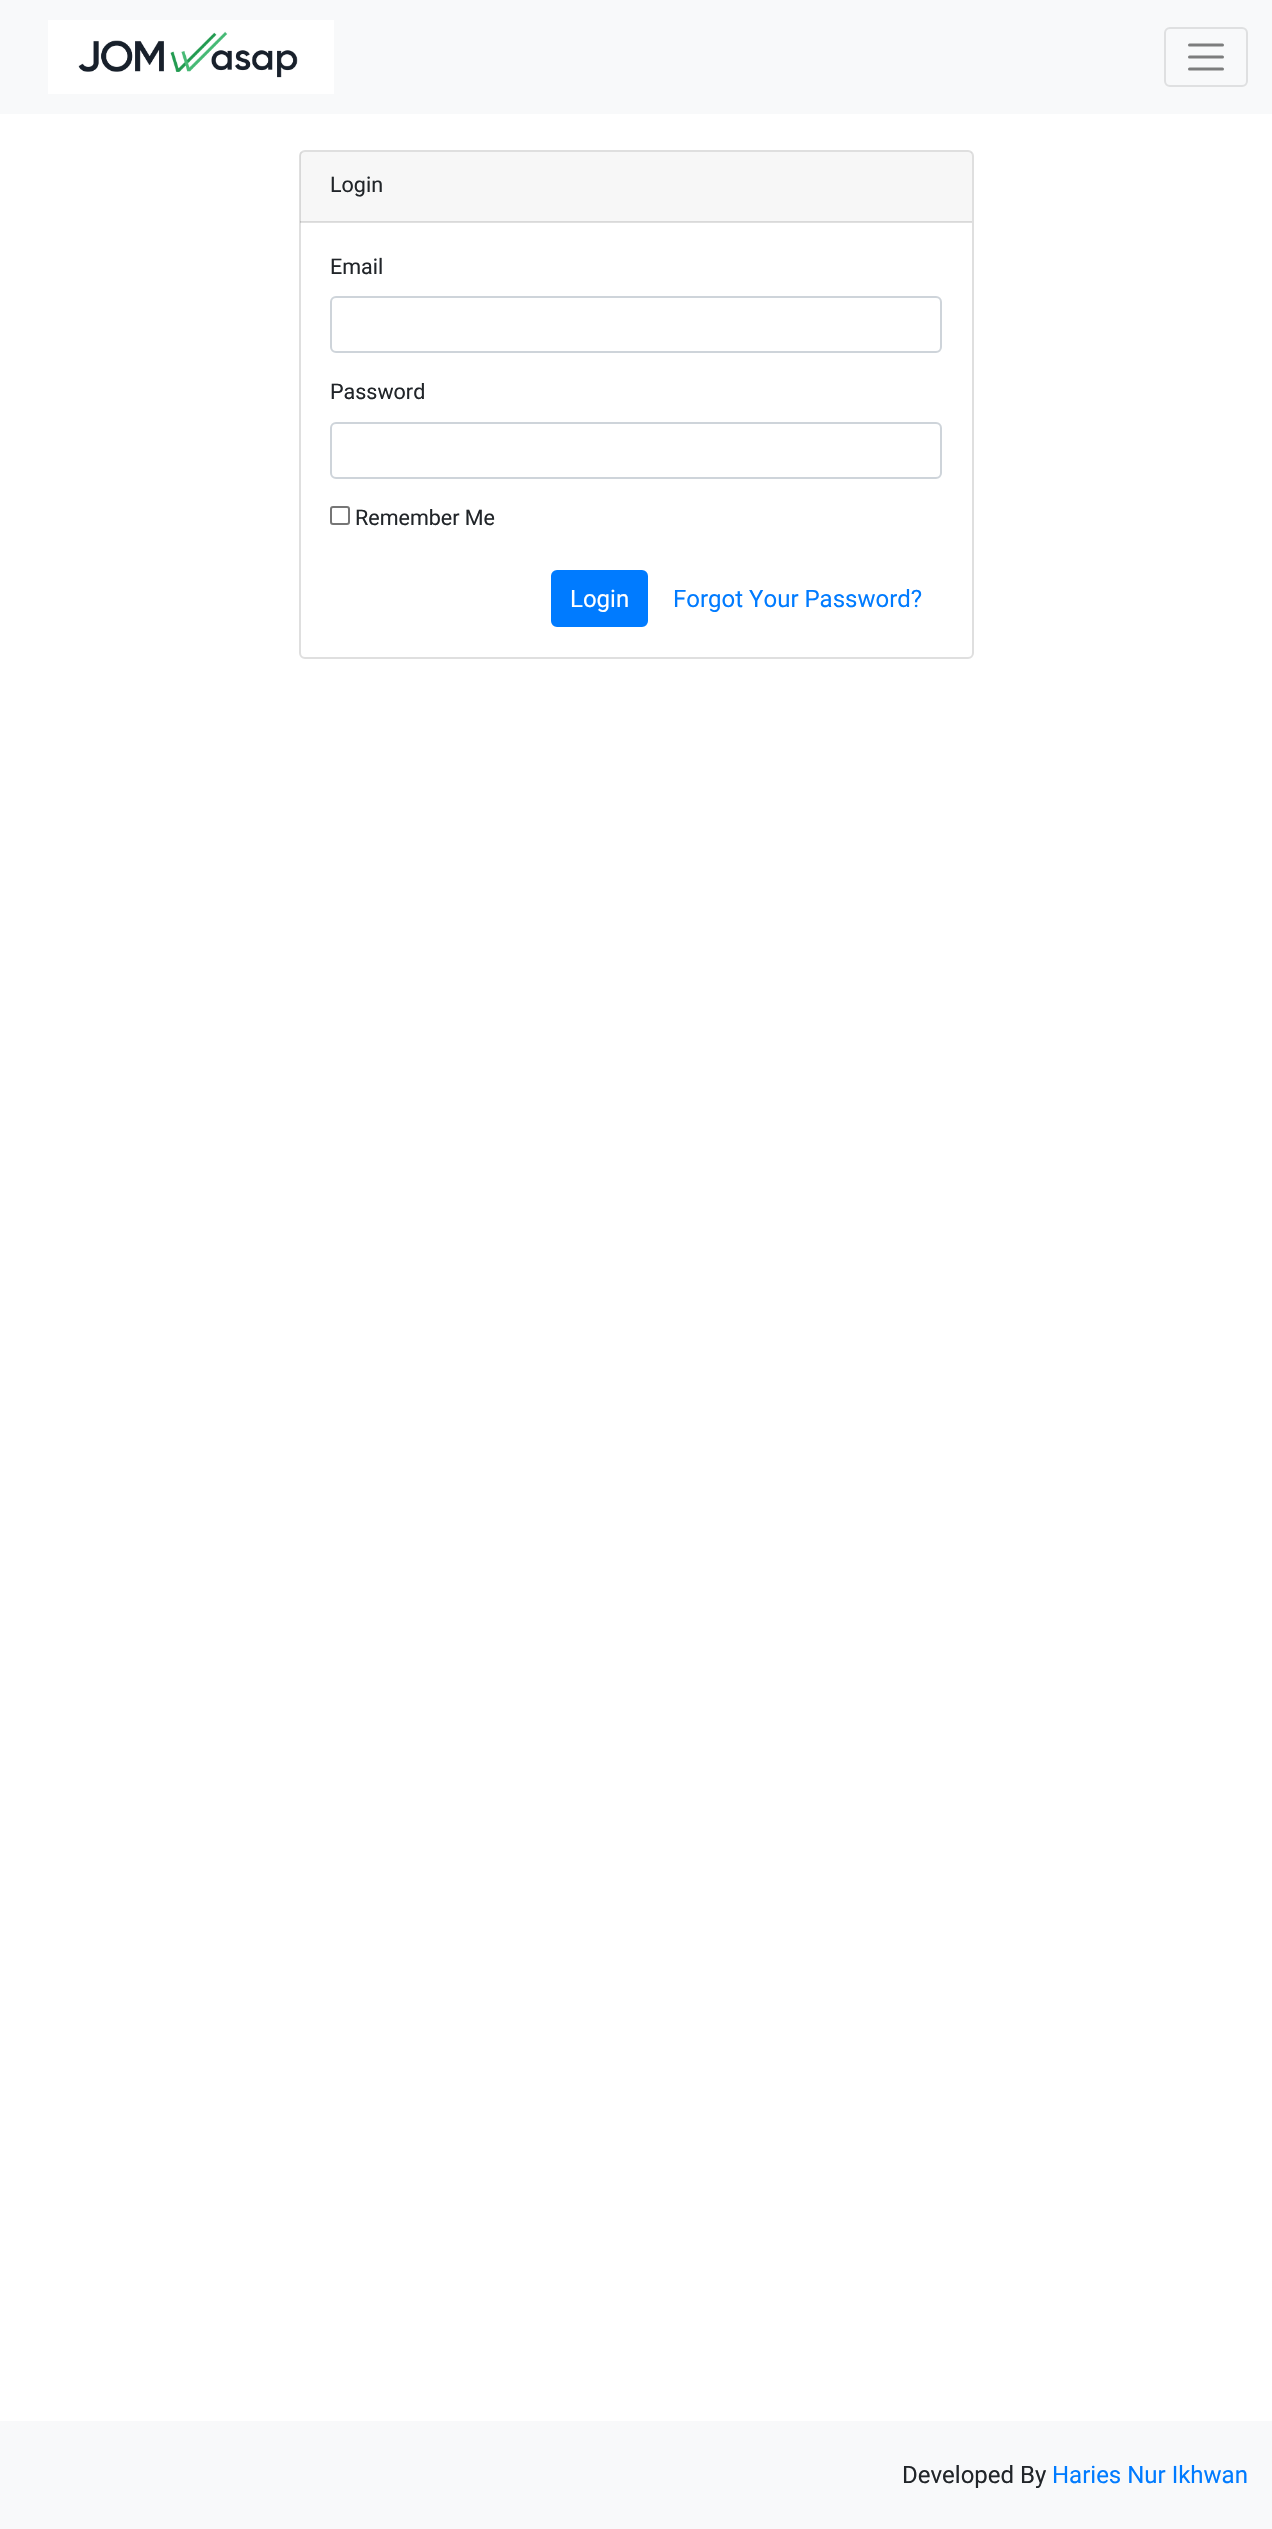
void draw(SkCanvas* c) {
SkPaint p;
p.setAntiAlias(true);
auto F=[&](const char* family, int weight, float size, bool italic = false){SkFontStyle style(weight, SkFontStyle::kNormal_Width,italic ? SkFontStyle::kItalic_Slant : SkFontStyle::kUpright_Slant);SkFont result(fontMgr->matchFamilyStyle(family, style), size);result.setSubpixel(true);return result;};
auto T=[&](const char* s, float x, float y, const SkFont& font){c->drawString(s, x, y, font, p);};
auto R=[&](float x, float y, float w, float h){c->drawRect(SkRect::MakeXYWH(x, y, w, h), p);};
auto I=[&](const char* path, float x, float y, float w, float h){auto image = SkImages::DeferredFromEncodedData(SkData::MakeFromFileName(path));c->drawImageRect(image, SkRect::MakeXYWH(x, y, w, h), SkSamplingOptions());};
auto P=[&](const char* data, bool evenOdd = false){SkPath result = *SkParsePath::FromSVGString(data);if (evenOdd) result.setFillType(SkPathFillType::kEvenOdd);return result;};
c->clear(0xffffffff);
p.setColor(0xfff8f9fa);
R(0,0,1272,114);
I("1.png",48,20,286,74);
p.setStroke(true);
p.setStrokeWidth(2);
p.setColor(0xffdfe0e1);
c->drawRoundRect(SkRect::MakeXYWH(1165,28,82,58),5,5,p);
p.setStrokeWidth(3);
p.setStrokeCap(SkPaint::kRound_Cap);
p.setColor(0xff7c7d7d);
c->drawPath(P("M1189.5 45h33m-33 12h33m-33 12h33"),p);
p.setStrokeWidth(2);
p.setStrokeCap(SkPaint::kButt_Cap);
p.setColor(0xffdfdfdf);
c->drawRoundRect(SkRect::MakeXYWH(300,151,673,507),5,5,p);
p.setStroke(false);
p.setColor(0x08000000);
R(300,152,672,70);
p.setColor(0x1f000000);
R(300,221,672,2);
auto f1 = F("Roboto",400,21.5);
p.setColor(0xff212529);
T("Login",330,192,f1);
T("Email",330,274,f1);
p.setStroke(true);
p.setColor(0xffced4da);
c->drawRoundRect(SkRect::MakeXYWH(331,297,610,55),5,5,p);
p.setStroke(false);
p.setColor(0xff212529);
T("Password",330,399,f1);
p.setStroke(true);
p.setColor(0xffced4da);
c->drawRoundRect(SkRect::MakeXYWH(331,423,610,55),5,5,p);
p.setColor(0xff767676);
c->drawRoundRect(SkRect::MakeXYWH(331,507,18,17),2,2,p);
p.setStroke(false);
p.setColor(0xff212529);
T("Remember Me",355,525,f1);
p.setColor(0xff007bff);
c->drawRoundRect(SkRect::MakeXYWH(552,571,95,55),5,5,p);
p.setStroke(true);
c->drawRoundRect(SkRect::MakeXYWH(552,571,95,55),5,5,p);
auto f2 = F("Roboto",400,24);
p.setStroke(false);
p.setColor(0xffffffff);
T("Login",570,607,f2);
p.setColor(0xff007bff);
T("Forgot Your Password?",673,607,f2);
p.setColor(0xfff8f9fa);
R(0,2421,1272,108);
p.setColor(0xff212529);
T("Developed By",902,2483,f2);
p.setColor(0xff007bff);
T("Haries Nur Ikhwan",1052,2483,f2);
}
